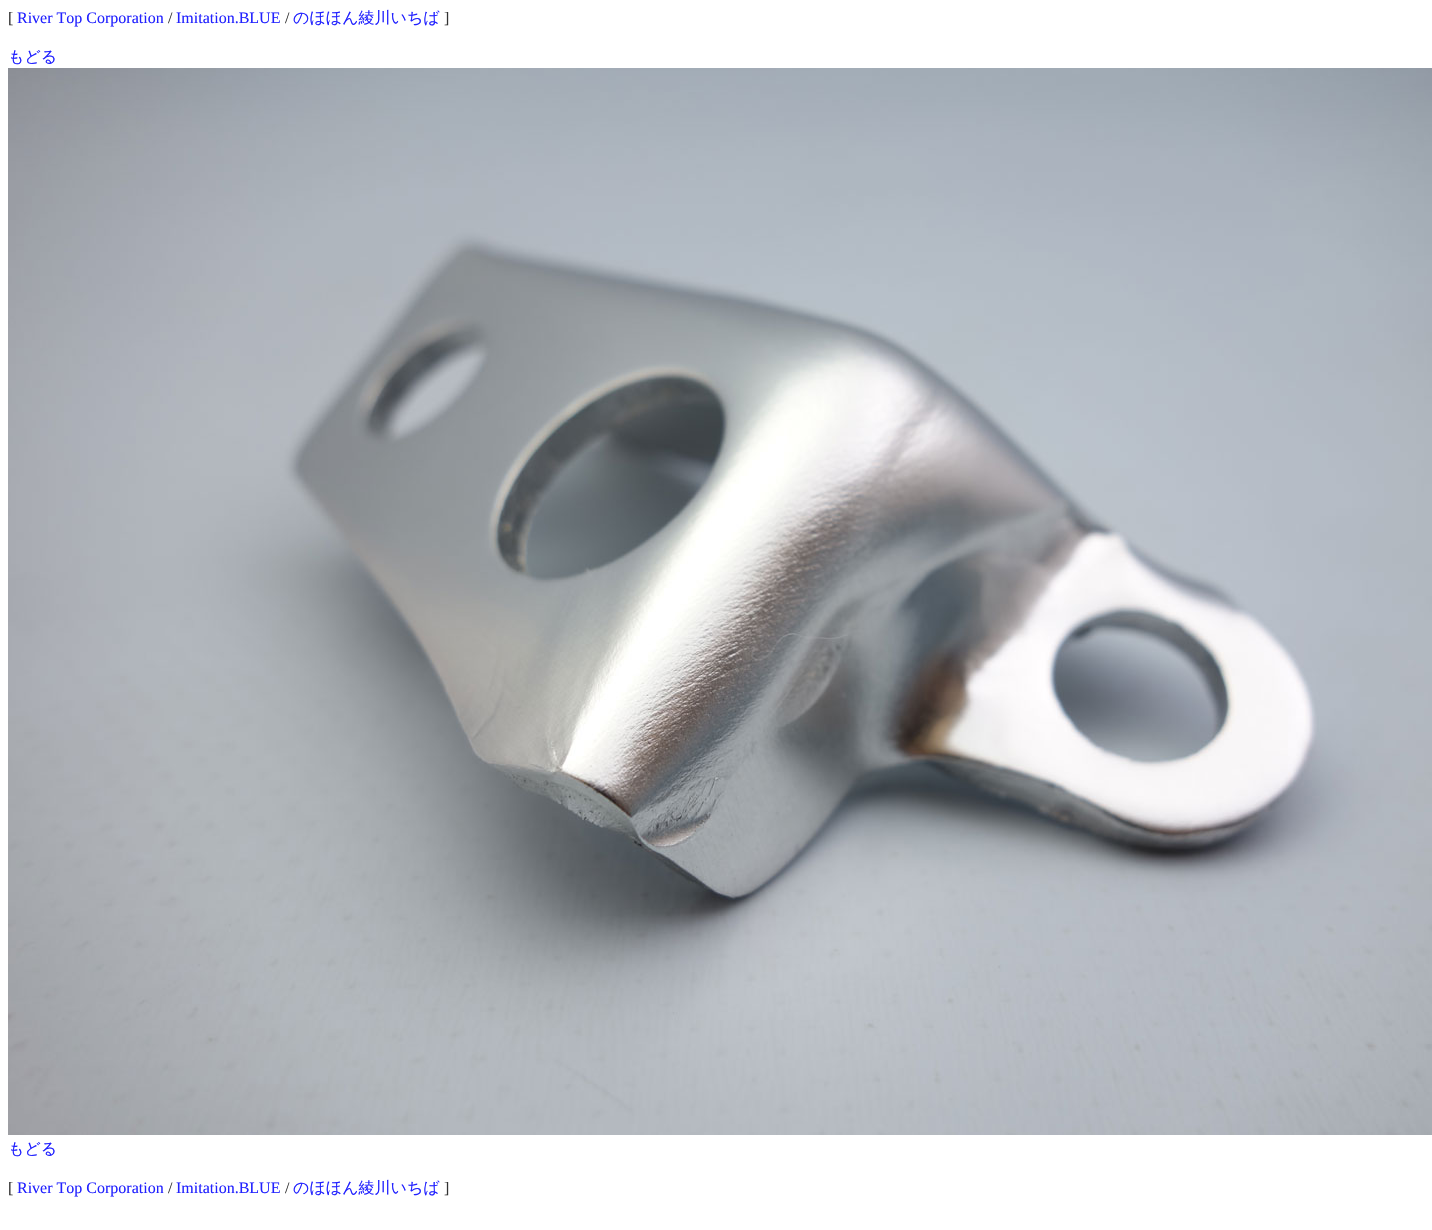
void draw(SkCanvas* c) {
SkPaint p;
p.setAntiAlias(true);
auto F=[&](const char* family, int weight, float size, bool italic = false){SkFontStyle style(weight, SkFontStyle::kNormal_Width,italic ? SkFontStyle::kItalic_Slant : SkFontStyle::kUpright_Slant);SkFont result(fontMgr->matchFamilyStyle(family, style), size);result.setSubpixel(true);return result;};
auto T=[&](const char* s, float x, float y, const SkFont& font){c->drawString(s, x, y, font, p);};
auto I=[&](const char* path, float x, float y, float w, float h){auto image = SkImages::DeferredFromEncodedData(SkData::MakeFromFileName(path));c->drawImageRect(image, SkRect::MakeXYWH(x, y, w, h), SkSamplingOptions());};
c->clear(0xffffffff);
auto f1 = F("Liberation Serif",400,16);
p.setColor(0xff333333);
T("[",8,23,f1);
p.setColor(0xff2222ff);
T("River Top Corporation",17,23,f1);
p.setColor(0xff333333);
T("/",168,23,f1);
p.setColor(0xff2222ff);
T("Imitation.BLUE",176,23,f1);
p.setColor(0xff333333);
T("/",285,23,f1);
auto f2 = F("WenQuanYi Zen Hei",500,16);
p.setColor(0xff2222ff);
T("のほほん綾川いちば",293,23,f2);
p.setColor(0xff333333);
T("]",444,23,f1);
p.setColor(0xff2222ff);
T("もどる",8,62,f2);
I("1.png",8,68,1424,1067);
T("もどる",8,1154,f2);
p.setColor(0xff333333);
T("[",8,1193,f1);
p.setColor(0xff2222ff);
T("River Top Corporation",17,1193,f1);
p.setColor(0xff333333);
T("/",168,1193,f1);
p.setColor(0xff2222ff);
T("Imitation.BLUE",176,1193,f1);
p.setColor(0xff333333);
T("/",285,1193,f1);
p.setColor(0xff2222ff);
T("のほほん綾川いちば",293,1193,f2);
p.setColor(0xff333333);
T("]",444,1193,f1);
}
